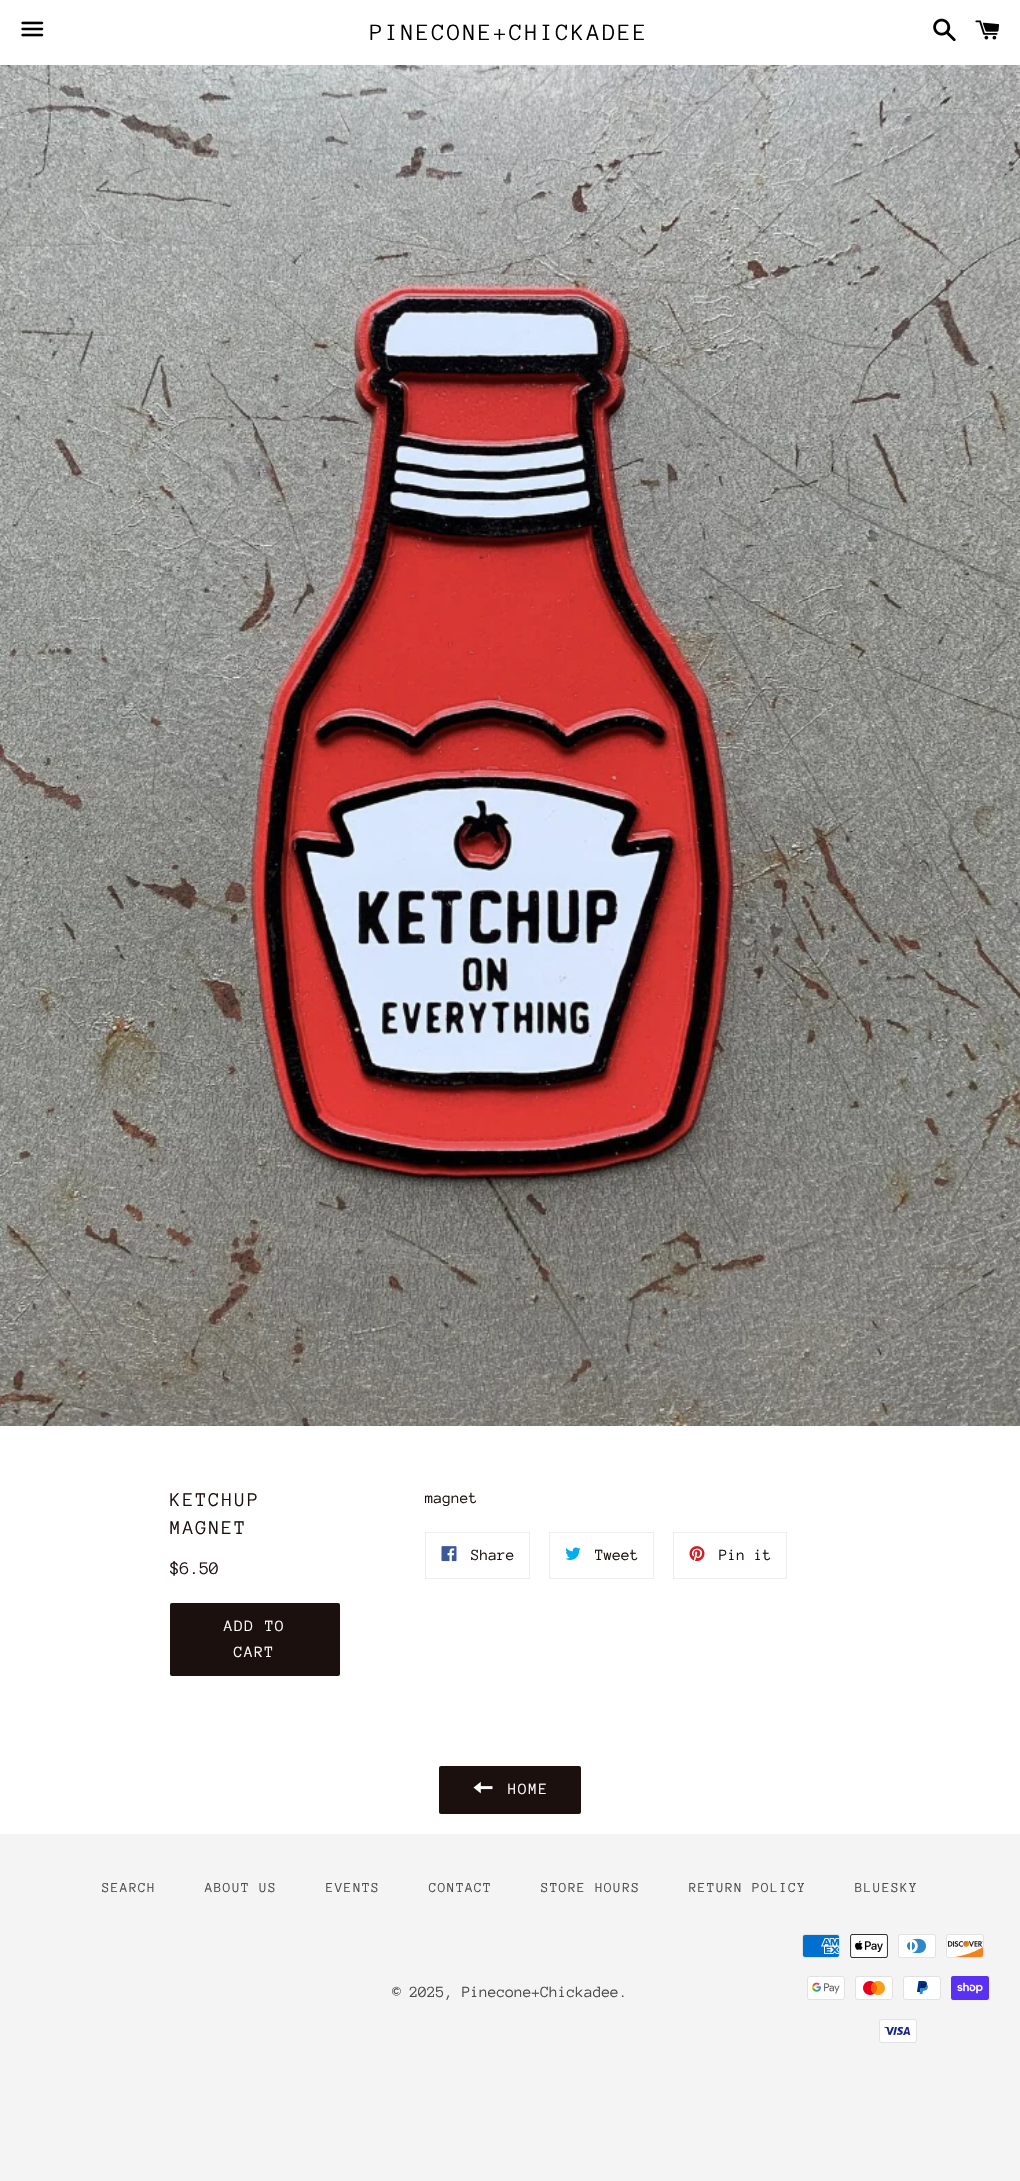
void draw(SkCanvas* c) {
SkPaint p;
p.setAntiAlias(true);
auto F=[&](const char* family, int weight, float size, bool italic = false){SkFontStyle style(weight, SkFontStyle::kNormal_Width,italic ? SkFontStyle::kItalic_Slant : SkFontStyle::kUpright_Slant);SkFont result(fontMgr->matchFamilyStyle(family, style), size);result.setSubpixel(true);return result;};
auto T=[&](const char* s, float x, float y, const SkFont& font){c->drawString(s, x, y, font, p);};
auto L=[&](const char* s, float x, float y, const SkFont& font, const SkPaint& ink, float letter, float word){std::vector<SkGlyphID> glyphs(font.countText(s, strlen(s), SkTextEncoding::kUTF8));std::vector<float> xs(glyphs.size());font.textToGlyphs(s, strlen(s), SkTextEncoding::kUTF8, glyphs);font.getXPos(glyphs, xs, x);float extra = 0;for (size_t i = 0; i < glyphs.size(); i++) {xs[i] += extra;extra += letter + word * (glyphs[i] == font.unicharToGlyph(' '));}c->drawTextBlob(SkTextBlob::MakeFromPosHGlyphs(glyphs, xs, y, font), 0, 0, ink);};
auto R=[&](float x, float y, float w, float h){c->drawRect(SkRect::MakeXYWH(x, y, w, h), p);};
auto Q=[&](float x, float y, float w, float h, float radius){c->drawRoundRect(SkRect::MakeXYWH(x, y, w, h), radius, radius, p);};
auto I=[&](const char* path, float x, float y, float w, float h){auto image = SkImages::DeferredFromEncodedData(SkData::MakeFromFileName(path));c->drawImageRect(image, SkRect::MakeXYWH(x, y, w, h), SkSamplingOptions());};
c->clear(0xfff4f4f4);
p.setColor(0xffffffff);
R(0,0,1020,1834);
I("1.png",21,21,23,16);
auto f1 = F("Anonymous Pro",400,24);
p.setColor(0xff000000);
L("PINECONE+CHICKADEE",370,40,f1,p,2.4,0);
I("2.png",933,18,23,24);
I("3.png",975,20,25,20);
I("4.png",0,65,1020,1361);
auto f2 = F("Anonymous Pro",400,20);
p.setColor(0xff1b100e);
L("KETCHUP",170,1506,f2,p,2,0);
L("MAGNET",170,1534,f2,p,2,0);
auto f3 = F("Anonymous Pro",400,18);
T("$6.50",170,1574,f3);
Q(170,1603,170,73,2);
auto f4 = F("Anonymous Pro",400,16);
p.setColor(0xffffffff);
L("ADD TO",224,1631,f4,p,1.5,0);
L("CART",234,1657,f4,p,1.5,0);
p.setColor(0xff1b100e);
T("magnet",425,1503,f4);
p.setStroke(true);
p.setStrokeWidth(1);
p.setColor(0xffeceff1);
c->drawRect(SkRect::MakeXYWH(425.5,1532.5,104,46),p);
I("5.png",441,1546,16,16);
p.setStroke(false);
p.setColor(0xff1b100e);
T("Share",471,1560,f4);
p.setStroke(true);
p.setColor(0xffeceff1);
c->drawRect(SkRect::MakeXYWH(549.5,1532.5,104,46),p);
I("6.png",565,1547,16,13);
p.setStroke(false);
p.setColor(0xff1b100e);
T("Tweet",595,1560,f4);
p.setStroke(true);
p.setColor(0xffeceff1);
c->drawRect(SkRect::MakeXYWH(673.5,1532.5,113,46),p);
I("7.png",689,1546,16,16);
p.setStroke(false);
p.setColor(0xff1b100e);
T("Pin it",719,1560,f4);
Q(439,1766,142,48,2);
I("8.png",473,1781,20,13);
p.setColor(0xffffffff);
L("HOME",508,1794,f4,p,1.5,0);
auto f5 = F("Anonymous Pro",400,14);
p.setColor(0xff4a4a4a);
L("SEARCH",102,1892,f5,p,1.4,0);
L("ABOUT US",205,1892,f5,p,1.4,0);
L("EVENTS",326,1892,f5,p,1.4,0);
L("CONTACT",429,1892,f5,p,1.4,0);
L("STORE HOURS",541,1892,f5,p,1.4,0);
L("RETURN POLICY",689,1892,f5,p,1.4,0);
L("BLUESKY",855,1892,f5,p,1.4,0);
T("© 2025, Pinecone+Chickadee.",392,1997,f4);
I("9.png",802,1934,38,24);
I("10.png",850,1934,38,24);
I("11.png",898,1934,38,24);
I("12.png",946,1934,38,24);
I("13.png",807,1976,38,24);
I("14.png",855,1976,38,24);
I("15.png",903,1976,38,24);
I("16.png",951,1976,38,24);
I("17.png",879,2019,38,24);
}
